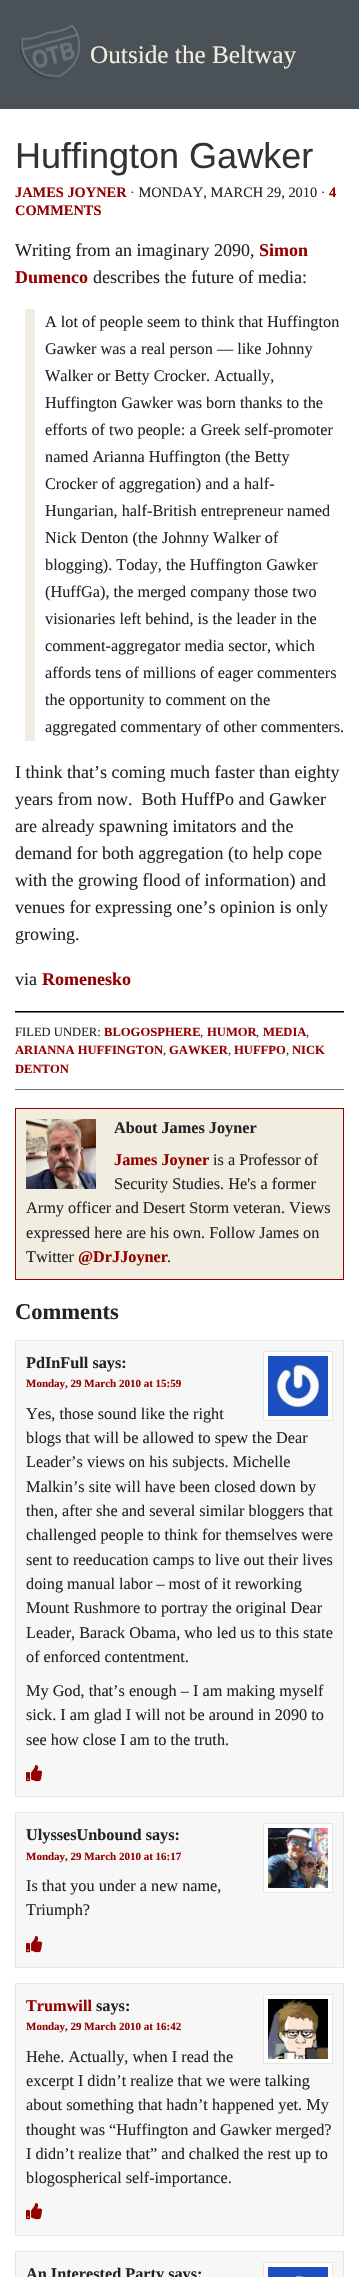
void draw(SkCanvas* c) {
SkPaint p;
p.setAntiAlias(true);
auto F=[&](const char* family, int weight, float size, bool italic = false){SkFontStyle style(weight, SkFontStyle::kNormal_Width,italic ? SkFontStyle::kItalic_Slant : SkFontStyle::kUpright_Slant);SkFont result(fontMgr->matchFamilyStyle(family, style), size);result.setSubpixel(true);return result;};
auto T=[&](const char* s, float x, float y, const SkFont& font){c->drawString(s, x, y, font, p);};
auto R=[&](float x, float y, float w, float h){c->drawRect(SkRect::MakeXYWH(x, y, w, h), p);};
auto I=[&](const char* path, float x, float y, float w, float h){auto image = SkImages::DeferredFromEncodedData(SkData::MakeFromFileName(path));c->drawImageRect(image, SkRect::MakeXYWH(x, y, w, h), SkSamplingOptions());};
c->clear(0xff4a5157);
I("1.png",19,24,61,55);
auto f1 = F("Liberation Serif",400,25.25);
p.setColor(0xfff2ede1);
T("Outside the Beltway",90,63,f1);
p.setColor(0xffffffff);
R(0,109,359,2168);
p.setColor(0xff000000);
R(15,1011,329,1);
auto f2 = F("Liberation Sans",400,36);
p.setColor(0xff333333);
T("Huffington Gawker",15,168,f2);
auto f3 = F("Liberation Serif",700,14.4);
p.setColor(0xff950000);
T("JAMES JOYNER",15,197,f3);
auto f4 = F("Liberation Serif",400,14.4);
p.setColor(0xff212529);
T("· MONDAY, MARCH 29, 2010 ·",130,197,f4);
p.setColor(0xff950000);
T("4",329,197,f3);
T("COMMENTS",15,215,f3);
auto f5 = F("Liberation Serif",400,18);
p.setColor(0xff212529);
T("Writing from an imaginary 2090,",15,256,f5);
auto f6 = F("Liberation Serif",700,18);
p.setColor(0xff950000);
T("Simon",259,256,f6);
T("Dumenco",15,283,f6);
p.setColor(0xff212529);
T("describes the future of media:",93,283,f5);
p.setColor(0xfff2ede1);
R(25,309,10,432);
auto f7 = F("Liberation Serif",400,16.25);
p.setColor(0xff212529);
T("A lot of people seem to think that Huffington",45,327,f7);
T("Gawker was a real person — like Johnny",45,354,f7);
T("Walker or Betty Crocker. Actually,",45,381,f7);
T("Huffington Gawker was born thanks to the",45,408,f7);
T("efforts of two people: a Greek self-promoter",45,435,f7);
T("named Arianna Huffington (the Betty",45,462,f7);
T("Crocker of aggregation) and a half-",45,489,f7);
T("Hungarian, half-British entrepreneur named",45,516,f7);
T("Nick Denton (the Johnny Walker of",45,543,f7);
T("blogging). Today, the Huffington Gawker",45,570,f7);
T("(HuffGa), the merged company those two",45,597,f7);
T("visionaries left behind, is the leader in the",45,624,f7);
T("comment-aggregator media sector, which",45,651,f7);
T("affords tens of millions of eager commenters",45,678,f7);
T("the opportunity to comment on the",45,705,f7);
T("aggregated commentary of other commenters.",45,732,f7);
T("I think that’s coming much faster than eighty",15,778,f5);
T("years from now.  Both HuffPo and Gawker",15,805,f5);
T("are already spawning imitators and the",15,832,f5);
T("demand for both aggregation (to help cope",15,859,f5);
T("with the growing flood of information) and",15,886,f5);
T("venues for expressing one’s opinion is only",15,913,f5);
T("growing.",15,940,f5);
T("via",15,985,f5);
p.setColor(0xff950000);
T("Romenesko",42,985,f6);
p.setColor(0xff6d7479);
R(15,1012,329,1);
R(15,1089,329,1);
auto f8 = F("Liberation Serif",400,12.6);
p.setColor(0xff212529);
T("FILED UNDER:",15,1036,f8);
auto f9 = F("Liberation Serif",700,12.6);
p.setColor(0xff950000);
T("BLOGOSPHERE",104,1036,f9);
p.setColor(0xff212529);
T(",",200,1036,f8);
p.setColor(0xff950000);
T("HUMOR",207,1036,f9);
p.setColor(0xff212529);
T(",",256,1036,f8);
p.setColor(0xff950000);
T("MEDIA",263,1036,f9);
p.setColor(0xff212529);
T(",",306,1036,f8);
p.setColor(0xff950000);
T("ARIANNA HUFFINGTON",15,1054,f9);
p.setColor(0xff212529);
T(",",163,1054,f8);
p.setColor(0xff950000);
T("GAWKER",169,1054,f9);
p.setColor(0xff212529);
T(",",228,1054,f8);
p.setColor(0xff950000);
T("HUFFPO",234,1054,f9);
p.setColor(0xff212529);
T(",",286,1054,f8);
p.setColor(0xff950000);
T("NICK",292,1054,f9);
T("DENTON",15,1073,f9);
p.setColor(0xfff2ede1);
c->drawRect(SkRect::MakeXYWH(15.5,1108.5,328,171),p);
p.setStroke(true);
p.setStrokeWidth(1);
p.setColor(0xff950000);
c->drawRect(SkRect::MakeXYWH(15.5,1108.5,328,171),p);
I("2.png",26,1119,70,70);
auto f10 = F("Liberation Serif",700,16.25);
p.setStroke(false);
p.setColor(0xff212529);
T("About James Joyner",114,1133,f10);
p.setColor(0xff950000);
T("James Joyner",114,1165,f10);
p.setColor(0xff212529);
T("is a Professor of",213,1165,f7);
T("Security Studies. He's a former",114,1189,f7);
T("Army officer and Desert Storm veteran. Views",26,1213,f7);
T("expressed here are his own. Follow James on",26,1238,f7);
T("Twitter",26,1262,f7);
p.setColor(0xff950000);
T("@DrJJoyner",78,1262,f10);
p.setColor(0xff212529);
T(".",167,1262,f7);
auto f11 = F("Liberation Serif",700,22.5);
T("Comments",15,1319,f11);
p.setColor(0xfff7f7f7);
c->drawRect(SkRect::MakeXYWH(15.5,1340.5,328,456),p);
p.setStroke(true);
p.setColor(0xffe6e6e6);
c->drawRect(SkRect::MakeXYWH(15.5,1340.5,328,456),p);
p.setStroke(false);
p.setColor(0xff212529);
T("PdInFull says:",26,1368,f10);
p.setColor(0xffffffff);
c->drawRect(SkRect::MakeXYWH(263.5,1351.5,69,69),p);
p.setStroke(true);
p.setColor(0xffe6e6e6);
c->drawRect(SkRect::MakeXYWH(263.5,1351.5,69,69),p);
I("3.png",268,1356,60,60);
auto f12 = F("Liberation Serif",700,11);
p.setStroke(false);
p.setColor(0xff950000);
T("Monday, 29 March 2010 at 15:59",26,1387,f12);
p.setColor(0xff212529);
T("Yes, those sound like the right",26,1419,f7);
T("blogs that will be allowed to spew the Dear",26,1443,f7);
T("Leader’s views on his subjects. Michelle",26,1467,f7);
T("Malkin’s site will have been closed down by",26,1492,f7);
T("then, after she and several similar bloggers that",26,1516,f7);
T("challenged people to think for themselves were",26,1540,f7);
T("sent to reeducation camps to live out their lives",26,1565,f7);
T("doing manual labor – most of it reworking",26,1589,f7);
T("Mount Rushmore to portray the original Dear",26,1613,f7);
T("Leader, Barack Obama, who led us to this state",26,1638,f7);
T("of enforced contentment.",26,1662,f7);
T("My God, that’s enough – I am making myself",26,1696,f7);
T("sick. I am glad I will not be around in 2090 to",26,1720,f7);
T("see how close I am to the truth.",26,1745,f7);
I("4.png",26,1765,17,17);
p.setColor(0xfff7f7f7);
c->drawRect(SkRect::MakeXYWH(15.5,1812.5,328,155),p);
p.setStroke(true);
p.setColor(0xffe6e6e6);
c->drawRect(SkRect::MakeXYWH(15.5,1812.5,328,155),p);
p.setStroke(false);
p.setColor(0xff212529);
T("UlyssesUnbound says:",26,1840,f10);
p.setColor(0xffffffff);
c->drawRect(SkRect::MakeXYWH(263.5,1823.5,69,69),p);
p.setStroke(true);
p.setColor(0xffe6e6e6);
c->drawRect(SkRect::MakeXYWH(263.5,1823.5,69,69),p);
I("5.png",268,1828,60,60);
p.setStroke(false);
p.setColor(0xff950000);
T("Monday, 29 March 2010 at 16:17",26,1860,f12);
p.setColor(0xff212529);
T("Is that you under a new name,",26,1891,f7);
T("Triumph?",26,1915,f7);
I("4.png",26,1936,17,17);
p.setColor(0xfff7f7f7);
c->drawRect(SkRect::MakeXYWH(15.5,1983.5,328,252),p);
p.setStroke(true);
p.setColor(0xffe6e6e6);
c->drawRect(SkRect::MakeXYWH(15.5,1983.5,328,252),p);
p.setStroke(false);
p.setColor(0xff950000);
T("Trumwill",26,2011,f10);
p.setColor(0xff212529);
T("says:",96,2011,f10);
p.setColor(0xffffffff);
c->drawRect(SkRect::MakeXYWH(263.5,1994.5,69,69),p);
p.setStroke(true);
p.setColor(0xffe6e6e6);
c->drawRect(SkRect::MakeXYWH(263.5,1994.5,69,69),p);
I("6.png",268,1999,60,60);
p.setStroke(false);
p.setColor(0xff950000);
T("Monday, 29 March 2010 at 16:42",26,2030,f12);
p.setColor(0xff212529);
T("Hehe. Actually, when I read the",26,2062,f7);
T("excerpt I didn’t realize that we were talking",26,2086,f7);
T("about something that hadn’t happened yet. My",26,2110,f7);
T("thought was “Huffington and Gawker merged?",26,2135,f7);
T("I didn’t realize that” and chalked the rest up to",26,2159,f7);
T("blogospherical self-importance.",26,2183,f7);
I("4.png",26,2203,17,17);
p.setColor(0xfff7f7f7);
c->drawRect(SkRect::MakeXYWH(15.5,2251.5,328,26),p);
p.setStroke(true);
p.setColor(0xffe6e6e6);
c->drawRect(SkRect::MakeXYWH(15.5,2251.5,328,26),p);
p.setStroke(false);
p.setColor(0xff212529);
T("An Interested Party says:",26,2279,f10);
p.setColor(0xffffffff);
c->drawRect(SkRect::MakeXYWH(263.5,2262.5,69,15),p);
p.setStroke(true);
p.setColor(0xffe6e6e6);
c->drawRect(SkRect::MakeXYWH(263.5,2262.5,69,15),p);
I("7.png",268,2267,60,10);
}
